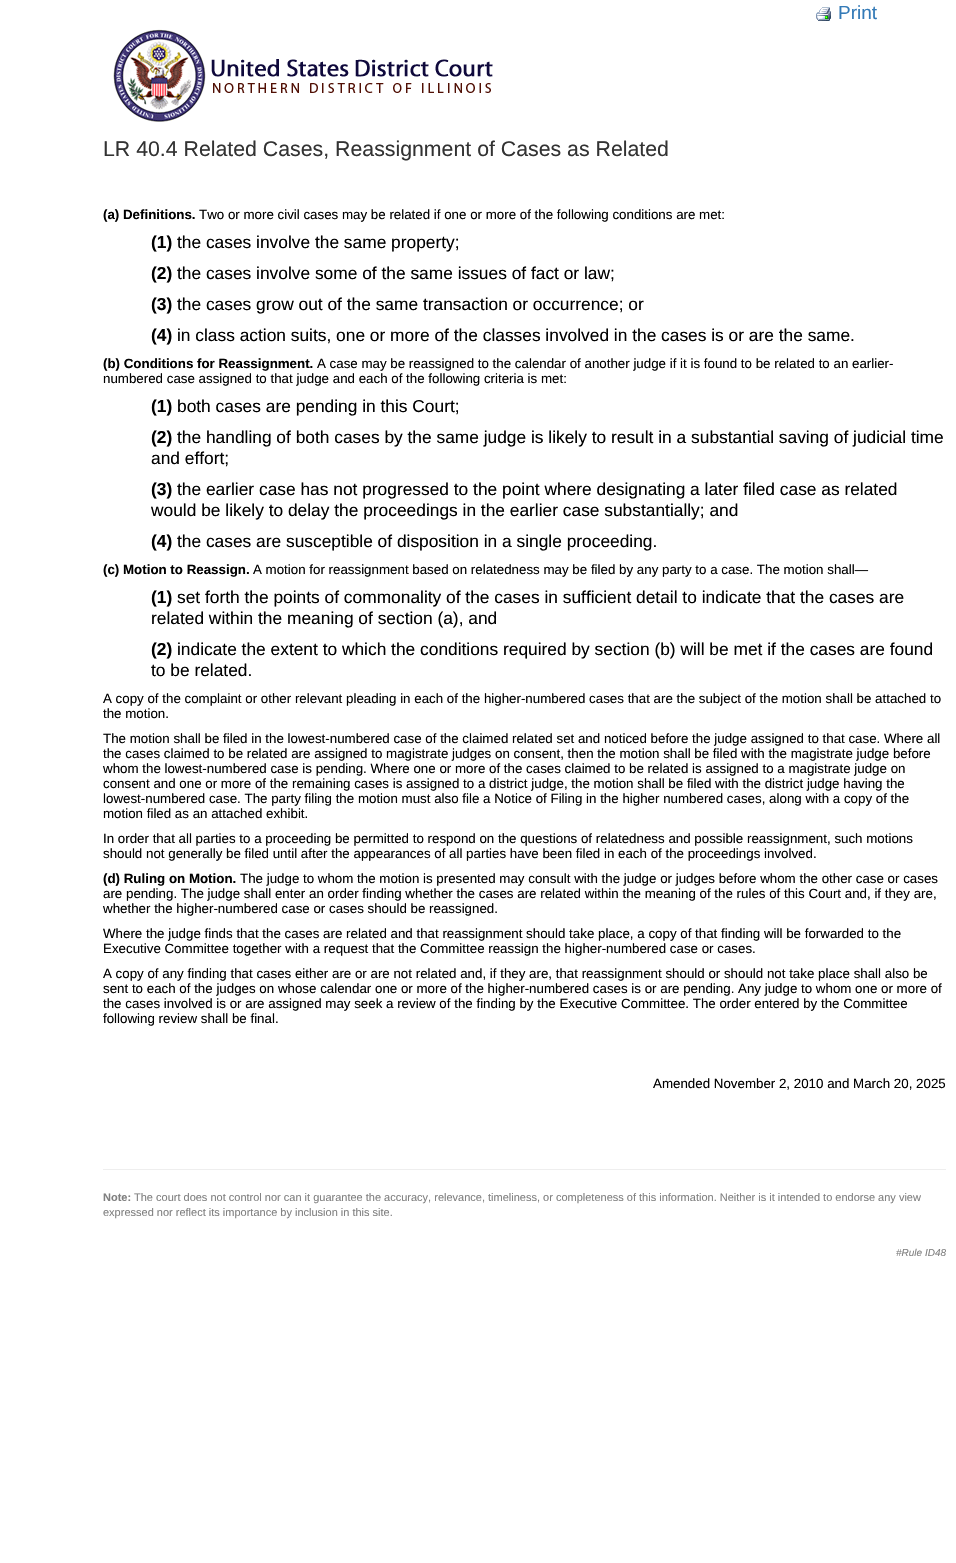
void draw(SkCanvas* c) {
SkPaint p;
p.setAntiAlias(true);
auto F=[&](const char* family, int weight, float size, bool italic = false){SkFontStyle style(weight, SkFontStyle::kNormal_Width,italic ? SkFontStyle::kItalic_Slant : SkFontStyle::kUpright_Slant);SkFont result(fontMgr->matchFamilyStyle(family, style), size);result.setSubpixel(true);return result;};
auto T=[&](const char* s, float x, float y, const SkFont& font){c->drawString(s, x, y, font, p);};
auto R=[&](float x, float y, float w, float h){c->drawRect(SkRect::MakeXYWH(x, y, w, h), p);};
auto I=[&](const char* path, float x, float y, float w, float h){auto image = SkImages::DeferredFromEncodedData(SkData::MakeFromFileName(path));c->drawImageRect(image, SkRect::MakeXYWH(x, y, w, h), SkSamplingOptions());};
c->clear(0xffffffff);
I("1.png",816,7,15,14);
auto f1 = F("Liberation Sans",400,19);
p.setColor(0xff337ab7);
T("Print",838,19,f1);
I("2.png",113,29,380,93);
auto f2 = F("Liberation Sans",400,21.3);
p.setColor(0xff333333);
T("LR 40.4 Related Cases, Reassignment of Cases as Related",103,156,f2);
auto f3 = F("Liberation Sans",700,13.33);
p.setColor(0xff000000);
T("(a) Definitions.",103,219,f3);
auto f4 = F("Liberation Sans",400,13.33);
T("Two or more civil cases may be related if one or more of the following conditions are met:",199,219,f4);
auto f5 = F("Liberation Sans",700,17.35);
T("(1)",151,248,f5);
auto f6 = F("Liberation Sans",400,17.35);
T("the cases involve the same property;",177,248,f6);
T("(2)",151,279,f5);
T("the cases involve some of the same issues of fact or law;",177,279,f6);
T("(3)",151,310,f5);
T("the cases grow out of the same transaction or occurrence; or",177,310,f6);
T("(4)",151,341,f5);
T("in class action suits, one or more of the classes involved in the cases is or are the same.",177,341,f6);
T("(b) Conditions for Reassignment.",103,368,f3);
T("A case may be reassigned to the calendar of another judge if it is found to be related to an earlier-",317,368,f4);
T("numbered case assigned to that judge and each of the following criteria is met:",103,383,f4);
T("(1)",151,412,f5);
T("both cases are pending in this Court;",177,412,f6);
T("(2)",151,443,f5);
T("the handling of both cases by the same judge is likely to result in a substantial saving of judicial time",177,443,f6);
T("and effort;",151,464,f6);
T("(3)",151,495,f5);
T("the earlier case has not progressed to the point where designating a later filed case as related",177,495,f6);
T("would be likely to delay the proceedings in the earlier case substantially; and",151,516,f6);
T("(4)",151,547,f5);
T("the cases are susceptible of disposition in a single proceeding.",177,547,f6);
T("(c) Motion to Reassign.",103,574,f3);
T("A motion for reassignment based on relatedness may be filed by any party to a case. The motion shall—",253,574,f4);
T("(1)",151,603,f5);
T("set forth the points of commonality of the cases in sufficient detail to indicate that the cases are",177,603,f6);
T("related within the meaning of section (a), and",151,624,f6);
T("(2)",151,655,f5);
T("indicate the extent to which the conditions required by section (b) will be met if the cases are found",177,655,f6);
T("to be related.",151,676,f6);
T("A copy of the complaint or other relevant pleading in each of the higher-numbered cases that are the subject of the motion shall be attached to",103,703,f4);
T("the motion.",103,718,f4);
T("The motion shall be filed in the lowest-numbered case of the claimed related set and noticed before the judge assigned to that case. Where all",103,743,f4);
T("the cases claimed to be related are assigned to magistrate judges on consent, then the motion shall be filed with the magistrate judge before",103,758,f4);
T("whom the lowest-numbered case is pending. Where one or more of the cases claimed to be related is assigned to a magistrate judge on",103,773,f4);
T("consent and one or more of the remaining cases is assigned to a district judge, the motion shall be filed with the district judge having the",103,788,f4);
T("lowest-numbered case. The party filing the motion must also file a Notice of Filing in the higher numbered cases, along with a copy of the",103,803,f4);
T("motion filed as an attached exhibit.",103,818,f4);
T("In order that all parties to a proceeding be permitted to respond on the questions of relatedness and possible reassignment, such motions",103,843,f4);
T("should not generally be filed until after the appearances of all parties have been filed in each of the proceedings involved.",103,858,f4);
T("(d) Ruling on Motion.",103,883,f3);
T("The judge to whom the motion is presented may consult with the judge or judges before whom the other case or cases",240,883,f4);
T("are pending. The judge shall enter an order finding whether the cases are related within the meaning of the rules of this Court and, if they are,",103,898,f4);
T("whether the higher-numbered case or cases should be reassigned.",103,913,f4);
T("Where the judge finds that the cases are related and that reassignment should take place, a copy of that finding will be forwarded to the",103,938,f4);
T("Executive Committee together with a request that the Committee reassign the higher-numbered case or cases.",103,953,f4);
T("A copy of any finding that cases either are or are not related and, if they are, that reassignment should or should not take place shall also be",103,978,f4);
T("sent to each of the judges on whose calendar one or more of the higher-numbered cases is or are pending. Any judge to whom one or more of",103,993,f4);
T("the cases involved is or are assigned may seek a review of the finding by the Executive Committee. The order entered by the Committee",103,1008,f4);
T("following review shall be final.",103,1023,f4);
T("Amended November 2, 2010 and March 20, 2025",653,1088,f4);
p.setColor(0xffeeeeee);
R(103,1169,843,1);
auto f7 = F("Liberation Sans",700,11);
p.setColor(0xff808080);
T("Note:",103,1201,f7);
auto f8 = F("Liberation Sans",400,11);
T("The court does not control nor can it guarantee the accuracy, relevance, timeliness, or completeness of this information. Neither is it intended to endorse any view",134,1201,f8);
T("expressed nor reflect its importance by inclusion in this site.",103,1216,f8);
auto f9 = F("Liberation Sans",400,10,true);
T("#Rule ID48",896,1256,f9);
}
